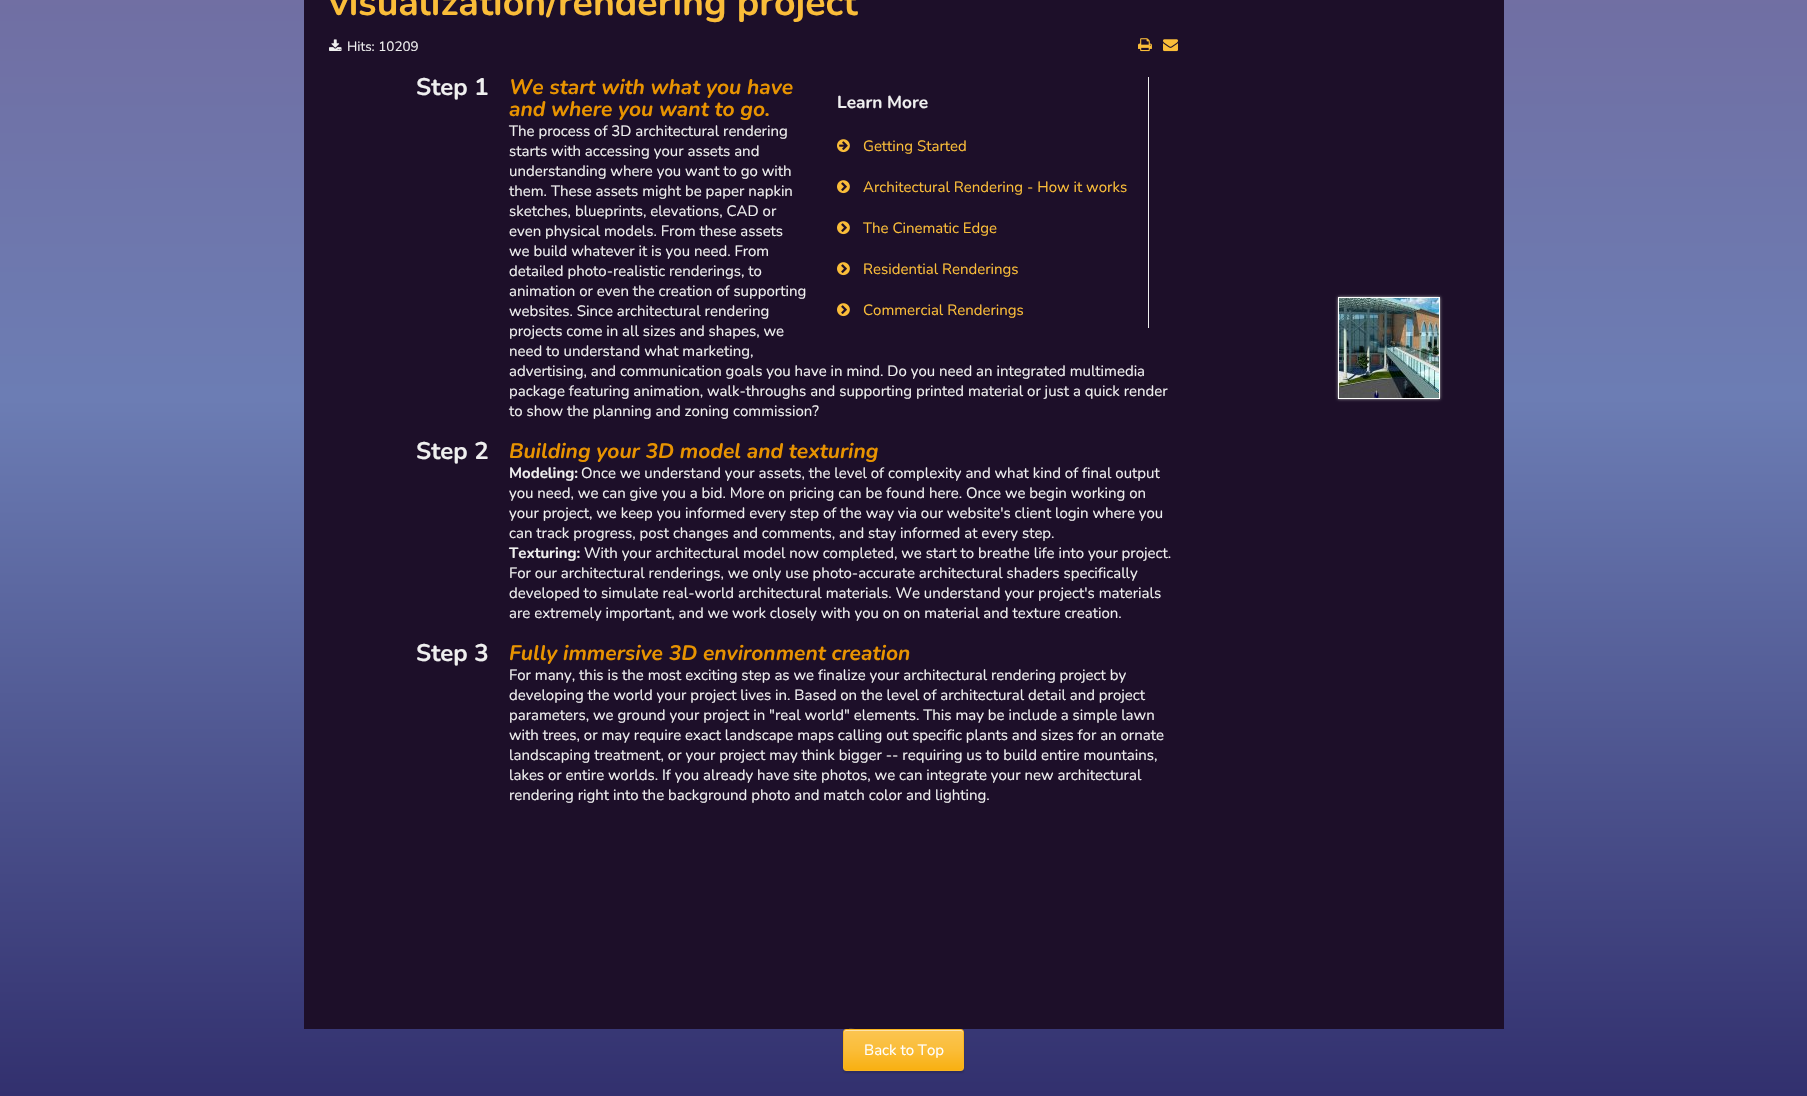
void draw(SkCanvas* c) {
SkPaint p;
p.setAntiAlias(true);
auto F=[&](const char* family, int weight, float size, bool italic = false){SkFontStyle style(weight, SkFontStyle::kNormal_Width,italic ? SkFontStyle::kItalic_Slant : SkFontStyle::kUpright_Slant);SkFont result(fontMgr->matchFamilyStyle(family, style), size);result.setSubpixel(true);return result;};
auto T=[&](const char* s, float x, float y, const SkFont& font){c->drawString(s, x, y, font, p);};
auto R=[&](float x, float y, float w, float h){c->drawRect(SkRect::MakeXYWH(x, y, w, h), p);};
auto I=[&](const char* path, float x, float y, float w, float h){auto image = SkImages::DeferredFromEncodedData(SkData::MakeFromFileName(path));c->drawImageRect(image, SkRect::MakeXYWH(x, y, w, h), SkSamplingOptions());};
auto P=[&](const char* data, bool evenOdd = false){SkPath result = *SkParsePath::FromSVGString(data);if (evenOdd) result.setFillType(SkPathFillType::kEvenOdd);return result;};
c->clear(0xffffffff);
{
const SkColor colors[] = {0xff746496,0xff6c7db4,0xff32306e};
const float stops[] = {0,.5,1};
const SkPoint ends[] = {{903,-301}, {904,1096}};
p.setShader(SkGradientShader::MakeLinear(ends, colors, stops, 3, SkTileMode::kClamp));
p.setAlpha(255);
}
R(0,0,1807,1096);
p.setShader(nullptr);
p.setColor(0xff1d0f29);
R(304,0,1200,1029);
auto f1 = F("Nunito",700,37.5);
p.setColor(0xfffabd39);
T("visualization/rendering project",329,15,f1);
I("1.png",329,39,13,12);
auto f2 = F("Nunito",400,13.5);
p.setColor(0xffefefef);
T("Hits: 10209",347,51,f2);
I("2.png",1138,38,14,14);
I("3.png",1163,39,15,13);
auto f3 = F("Nunito",700,24);
T("Step 1",416,95,f3);
auto f4 = F("Nunito",700,21,true);
p.setColor(0xffe89300);
T("We start with what you have",509,94,f4);
T("and where you want to go.",509,116,f4);
auto f5 = F("Nunito",400,15);
p.setColor(0xffefefef);
T("The process of 3D architectural rendering",509,136,f5);
T("starts with accessing your assets and",509,156,f5);
T("understanding where you want to go with",509,176,f5);
T("them. These assets might be paper napkin",509,196,f5);
T("sketches, blueprints, elevations, CAD or",509,216,f5);
T("even physical models. From these assets",509,236,f5);
T("we build whatever it is you need. From",509,256,f5);
T("detailed photo-realistic renderings, to",509,276,f5);
T("animation or even the creation of supporting",509,296,f5);
T("websites. Since architectural rendering",509,316,f5);
T("projects come in all sizes and shapes, we",509,336,f5);
T("need to understand what marketing,",509,356,f5);
T("advertising, and communication goals you have in mind. Do you need an integrated multimedia",509,376,f5);
T("package featuring animation, walk-throughs and supporting printed material or just a quick render",509,396,f5);
T("to show the planning and zoning commission?",509,416,f5);
R(1148,77,1,251);
auto f6 = F("Nunito",700,17.25);
T("Learn More",837,108,f6);
I("4.png",837,139,13,14);
p.setColor(0xfffabd39);
T("Getting Started",863,151,f5);
I("5.png",837,180,13,14);
T("Architectural Rendering - How it works",863,192,f5);
I("5.png",837,221,13,14);
T("The Cinematic Edge",863,233,f5);
I("5.png",837,262,13,14);
T("Residential Renderings",863,274,f5);
I("5.png",837,303,13,14);
T("Commercial Renderings",863,315,f5);
p.setColor(0xffefefef);
T("Step 2",416,459,f3);
p.setColor(0xffe89300);
T("Building your 3D model and texturing",509,458,f4);
auto f7 = F("Nunito",700,15);
p.setColor(0xffefefef);
T("Modeling:",509,478,f7);
T("Once we understand your assets, the level of complexity and what kind of final output",581,478,f5);
T("you need, we can give you a bid. More on pricing can be found here. Once we begin working on",509,498,f5);
T("your project, we keep you informed every step of the way via our website's client login where you",509,518,f5);
T("can track progress, post changes and comments, and stay informed at every step.",509,538,f5);
T("Texturing:",509,558,f7);
T("With your architectural model now completed, we start to breathe life into your project.",584,558,f5);
T("For our architectural renderings, we only use photo-accurate architectural shaders specifically",509,578,f5);
T("developed to simulate real-world architectural materials. We understand your project's materials",509,598,f5);
T("are extremely important, and we work closely with you on on material and texture creation.",509,618,f5);
T("Step 3",416,661,f3);
p.setColor(0xffe89300);
T("Fully immersive 3D environment creation",509,660,f4);
p.setColor(0xffefefef);
T("For many, this is the most exciting step as we finalize your architectural rendering project by",509,680,f5);
T("developing the world your project lives in. Based on the level of architectural detail and project",509,700,f5);
T("parameters, we ground your project in \"real world\" elements. This may be include a simple lawn",509,720,f5);
T("with trees, or may require exact landscape maps calling out specific plants and sizes for an ornate",509,740,f5);
T("landscaping treatment, or your project may think bigger -- requiring us to build entire mountains,",509,760,f5);
T("lakes or entire worlds. If you already have site photos, we can integrate your new architectural",509,780,f5);
T("rendering right into the background photo and match color and lighting.",509,800,f5);
p.setColor(0xffaaaaaa);
p.setMaskFilter(SkMaskFilter::MakeBlur(kNormal_SkBlurStyle, 1.5));
c->drawRect(SkRect::MakeXYWH(1338,297,102,102),p);
p.setMaskFilter(nullptr);
p.setStroke(true);
p.setStrokeWidth(1);
p.setColor(0xffffffff);
c->drawRect(SkRect::MakeXYWH(1338.5,297.5,101,101),p);
I("6.png",1339,298,100,100);
p.setStroke(false);
p.setColor(0x26000000);
p.setMaskFilter(SkMaskFilter::MakeBlur(kNormal_SkBlurStyle, 1));
c->drawRoundRect(SkRect::MakeXYWH(843,1031,121,42),3,3,p);
p.setMaskFilter(nullptr);
{
const SkColor colors[] = {0xfffbc552,0xfffabd39,0xfff9b011};
const float stops[] = {0,.5,1};
const SkPoint ends[] = {{904,1030}, {904,1070}};
p.setShader(SkGradientShader::MakeLinear(ends, colors, stops, 3, SkTileMode::kClamp));
p.setAlpha(255);
}
R(844,1030,119,40);
p.setShader(nullptr);
p.setColor(0x80ffffff);
c->drawPath(P("M846 1031h115c1 0 2 1 2 2c0-1 0-2-1-3h-97c-6 0-21-4-21 3c0-1 1-2 2-2z"),p);
p.setStroke(true);
p.setColor(0xfff9b520);
c->drawRoundRect(SkRect::MakeXYWH(843.5,1029.5,120,41),2.5,2.5,p);
p.setStroke(false);
p.setColor(0xffffffff);
T("Back to Top",864,1055,f5);
}
